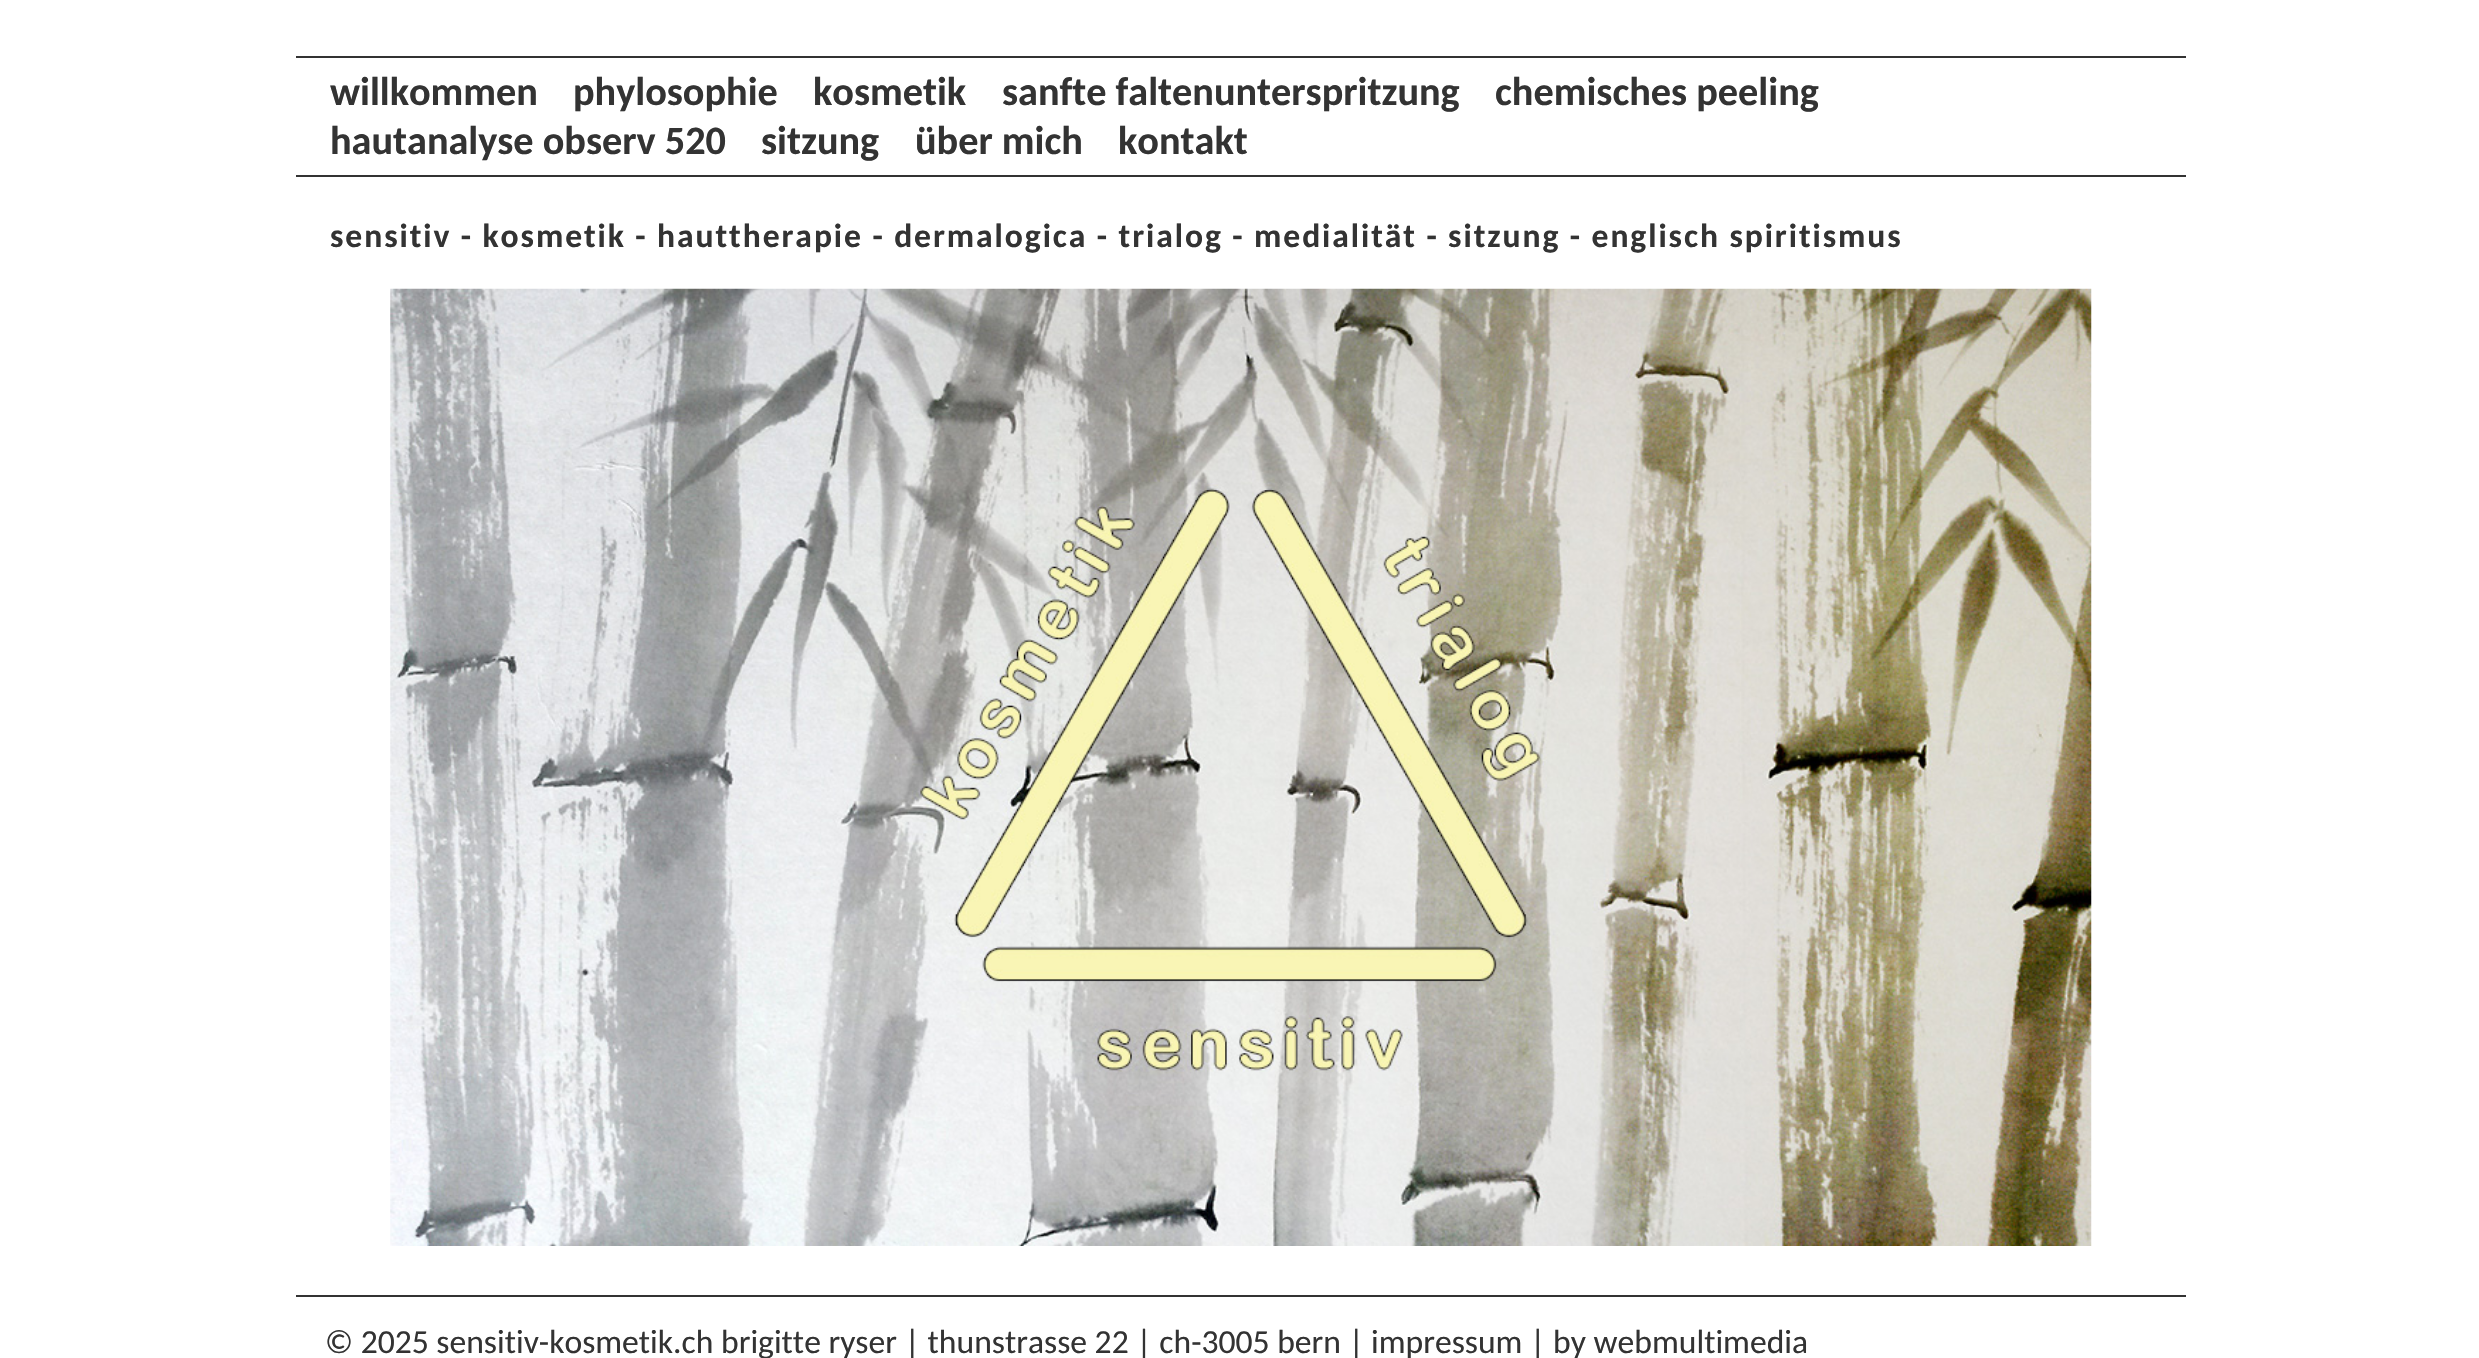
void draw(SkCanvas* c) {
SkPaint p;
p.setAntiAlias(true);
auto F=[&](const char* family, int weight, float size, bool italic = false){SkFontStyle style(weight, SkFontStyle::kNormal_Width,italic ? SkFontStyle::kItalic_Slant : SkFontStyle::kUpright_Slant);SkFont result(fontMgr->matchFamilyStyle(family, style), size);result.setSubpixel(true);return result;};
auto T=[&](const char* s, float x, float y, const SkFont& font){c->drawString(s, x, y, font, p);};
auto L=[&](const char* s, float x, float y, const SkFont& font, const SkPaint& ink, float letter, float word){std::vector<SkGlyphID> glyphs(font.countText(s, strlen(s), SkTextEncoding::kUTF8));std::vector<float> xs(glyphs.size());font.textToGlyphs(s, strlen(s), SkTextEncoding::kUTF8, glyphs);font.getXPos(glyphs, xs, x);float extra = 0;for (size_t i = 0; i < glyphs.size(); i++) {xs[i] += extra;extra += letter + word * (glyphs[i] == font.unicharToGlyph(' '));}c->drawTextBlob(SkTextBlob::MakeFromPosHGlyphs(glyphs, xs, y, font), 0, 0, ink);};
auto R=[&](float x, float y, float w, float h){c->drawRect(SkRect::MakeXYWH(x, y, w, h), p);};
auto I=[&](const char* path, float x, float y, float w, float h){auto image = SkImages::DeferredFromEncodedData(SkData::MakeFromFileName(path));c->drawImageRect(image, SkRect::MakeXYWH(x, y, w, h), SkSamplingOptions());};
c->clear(0xffffffff);
p.setColor(0xff333333);
R(296,56,1890,2);
R(296,175,1890,2);
auto f1 = F("Carlito",700,40.25);
T("willkommen",330,105,f1);
T("phylosophie",573,105,f1);
T("kosmetik",813,105,f1);
T("sanfte faltenunterspritzung",1002,105,f1);
T("chemisches peeling",1495,105,f1);
T("hautanalyse observ 520",330,154,f1);
T("sitzung",761,154,f1);
T("über mich",915,154,f1);
T("kontakt",1118,154,f1);
auto f2 = F("Carlito",700,33.6);
L("sensitiv - kosmetik - hauttherapie - dermalogica - trialog - medialität - sitzung - englisch spiritismus",330,247,f2,p,1.93,0);
I("1.png",390,288,1702,958);
R(296,1295,1890,2);
auto f3 = F("Carlito",400,33.6);
T("© 2025 sensitiv-kosmetik.ch brigitte ryser | thunstrasse 22 | ch-3005 bern |",325,1353,f3);
T("impressum | by webmultimedia",1371,1353,f3);
}
